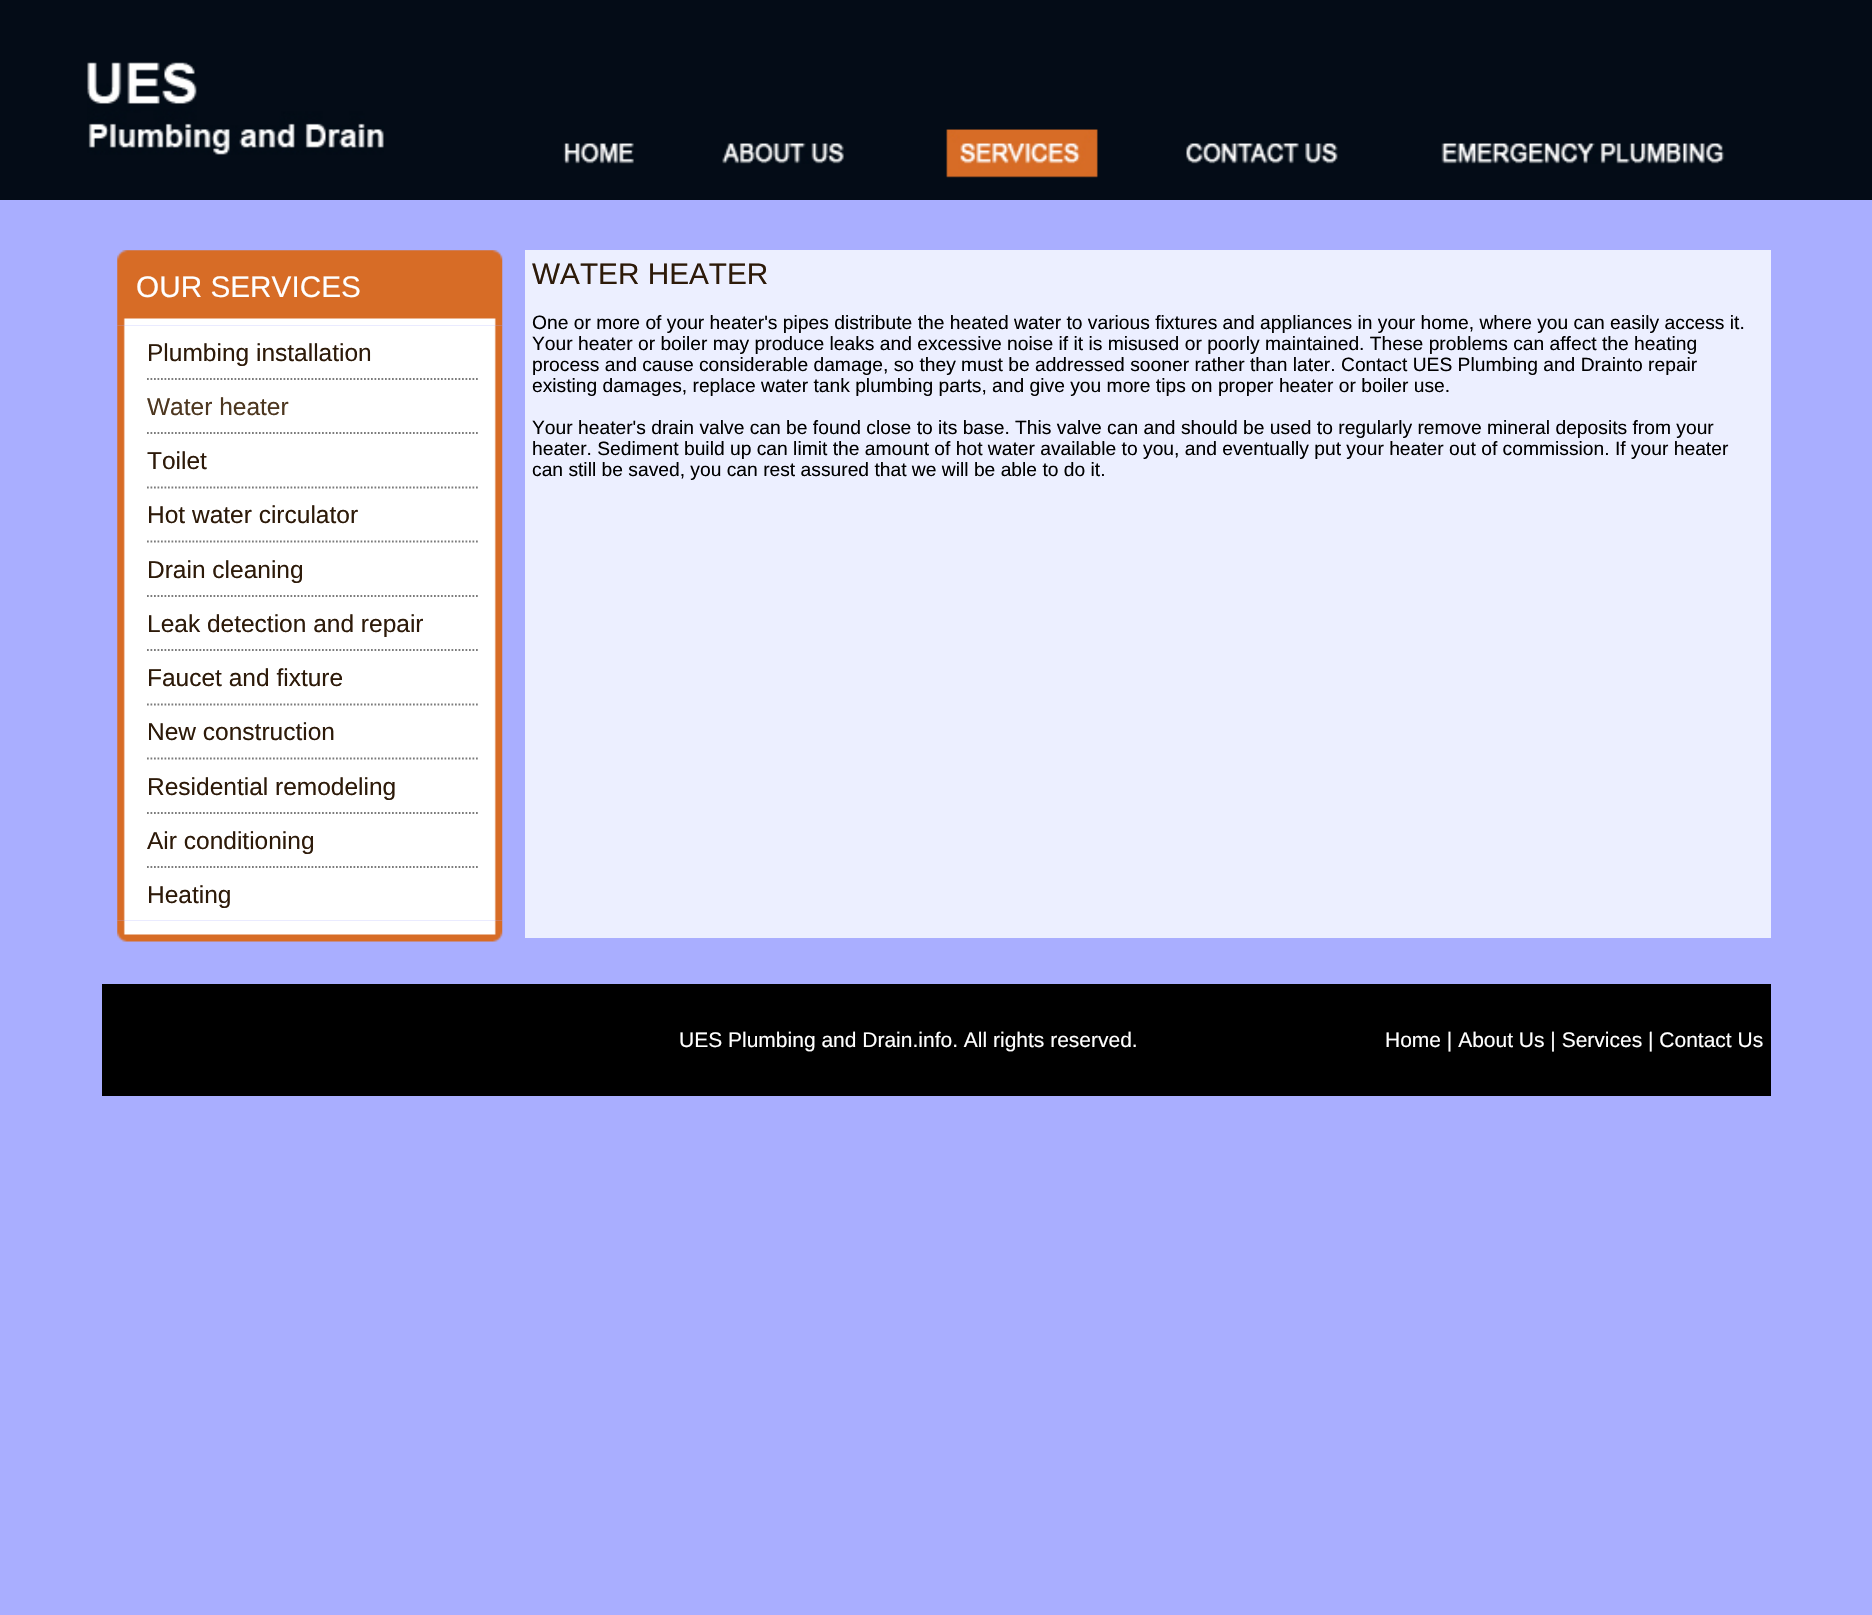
void draw(SkCanvas* c) {
SkPaint p;
p.setAntiAlias(true);
auto F=[&](const char* family, int weight, float size, bool italic = false){SkFontStyle style(weight, SkFontStyle::kNormal_Width,italic ? SkFontStyle::kItalic_Slant : SkFontStyle::kUpright_Slant);SkFont result(fontMgr->matchFamilyStyle(family, style), size);result.setSubpixel(true);return result;};
auto T=[&](const char* s, float x, float y, const SkFont& font){c->drawString(s, x, y, font, p);};
auto R=[&](float x, float y, float w, float h){c->drawRect(SkRect::MakeXYWH(x, y, w, h), p);};
auto I=[&](const char* path, float x, float y, float w, float h){auto image = SkImages::DeferredFromEncodedData(SkData::MakeFromFileName(path));c->drawImageRect(image, SkRect::MakeXYWH(x, y, w, h), SkSamplingOptions());};
auto P=[&](const char* data, bool evenOdd = false){SkPath result = *SkParsePath::FromSVGString(data);if (evenOdd) result.setFillType(SkPathFillType::kEvenOdd);return result;};
c->clear(0xffa9aeff);
p.setColor(0xff040c17);
R(0,0,1872,200);
I("1.png",87,62,297,93);
I("2.png",563,143,71,21);
I("3.png",722,143,122,21);
I("4.png",946,129,152,49);
I("5.png",1186,142,152,22);
I("6.png",1441,143,284,21);
I("7.png",117,250,386,76);
auto f1 = F("Liberation Sans",400,29.75);
p.setColor(0xffffffff);
T("OUR SERVICES",136,297,f1);
I("8.png",117,325,386,596);
p.setStroke(true);
p.setStrokeWidth(1.8);
p.setColor(0xff7b7b7b);
p.setPathEffect(SkDashPathEffect::Make({{1.75f,1.75f}}, 0));
c->drawPath(P("M147 379h332.5"),p);
p.setPathEffect(nullptr);
auto f2 = F("Liberation Sans",400,24.5);
p.setStroke(false);
p.setColor(0xff2d1a09);
T("Plumbing installation",147,361,f2);
p.setStroke(true);
p.setColor(0xff7b7b7b);
p.setPathEffect(SkDashPathEffect::Make({{1.75f,1.75f}}, 0));
c->drawPath(P("M147 433h332.5"),p);
p.setPathEffect(nullptr);
p.setStroke(false);
p.setColor(0xff4d3720);
T("Water heater",147,415,f2);
p.setStroke(true);
p.setColor(0xff7b7b7b);
p.setPathEffect(SkDashPathEffect::Make({{1.75f,1.75f}}, 0));
c->drawPath(P("M147 487.5h332.5"),p);
p.setPathEffect(nullptr);
p.setStroke(false);
p.setColor(0xff2d1a09);
T("Toilet",147,469,f2);
p.setStroke(true);
p.setColor(0xff7b7b7b);
p.setPathEffect(SkDashPathEffect::Make({{1.75f,1.75f}}, 0));
c->drawPath(P("M147 541.5h332.5"),p);
p.setPathEffect(nullptr);
p.setStroke(false);
p.setColor(0xff2d1a09);
T("Hot water circulator",147,523,f2);
p.setStroke(true);
p.setColor(0xff7b7b7b);
p.setPathEffect(SkDashPathEffect::Make({{1.75f,1.75f}}, 0));
c->drawPath(P("M147 596h332.5"),p);
p.setPathEffect(nullptr);
p.setStroke(false);
p.setColor(0xff2d1a09);
T("Drain cleaning",147,578,f2);
p.setStroke(true);
p.setColor(0xff7b7b7b);
p.setPathEffect(SkDashPathEffect::Make({{1.75f,1.75f}}, 0));
c->drawPath(P("M147 650h332.5"),p);
p.setPathEffect(nullptr);
p.setStroke(false);
p.setColor(0xff2d1a09);
T("Leak detection and repair",147,632,f2);
p.setStroke(true);
p.setColor(0xff7b7b7b);
p.setPathEffect(SkDashPathEffect::Make({{1.75f,1.75f}}, 0));
c->drawPath(P("M147 704.5h332.5"),p);
p.setPathEffect(nullptr);
p.setStroke(false);
p.setColor(0xff2d1a09);
T("Faucet and fixture",147,686,f2);
p.setStroke(true);
p.setColor(0xff7b7b7b);
p.setPathEffect(SkDashPathEffect::Make({{1.75f,1.75f}}, 0));
c->drawPath(P("M147 758.5h332.5"),p);
p.setPathEffect(nullptr);
p.setStroke(false);
p.setColor(0xff2d1a09);
T("New construction",147,740,f2);
p.setStroke(true);
p.setColor(0xff7b7b7b);
p.setPathEffect(SkDashPathEffect::Make({{1.75f,1.75f}}, 0));
c->drawPath(P("M147 813h332.5"),p);
p.setPathEffect(nullptr);
p.setStroke(false);
p.setColor(0xff2d1a09);
T("Residential remodeling",147,795,f2);
p.setStroke(true);
p.setColor(0xff7b7b7b);
p.setPathEffect(SkDashPathEffect::Make({{1.75f,1.75f}}, 0));
c->drawPath(P("M147 867h332.5"),p);
p.setPathEffect(nullptr);
p.setStroke(false);
p.setColor(0xff2d1a09);
T("Air conditioning",147,849,f2);
T("Heating",147,903,f2);
I("9.png",117,920,386,22);
p.setColor(0xffecefff);
R(525,250,1246,688);
p.setColor(0xff2d1a09);
T("WATER HEATER",532,284,f1);
auto f3 = F("Liberation Sans",400,19.25);
p.setColor(0xff000000);
T("One or more of your heater's pipes distribute the heated water to various fixtures and appliances in your home, where you can easily access it.",532,329,f3);
T("Your heater or boiler may produce leaks and excessive noise if it is misused or poorly maintained. These problems can affect the heating",532,350,f3);
T("process and cause considerable damage, so they must be addressed sooner rather than later. Contact UES Plumbing and Drainto repair",532,371,f3);
T("existing damages, replace water tank plumbing parts, and give you more tips on proper heater or boiler use.",532,392,f3);
T("Your heater's drain valve can be found close to its base. This valve can and should be used to regularly remove mineral deposits from your",532,434,f3);
T("heater. Sediment build up can limit the amount of hot water available to you, and eventually put your heater out of commission. If your heater",532,455,f3);
T("can still be saved, you can rest assured that we will be able to do it.",532,476,f3);
R(102,984,1669,112);
auto f4 = F("Liberation Sans",400,21);
p.setColor(0xffffffff);
T("UES Plumbing and Drain.info. All rights reserved.",679,1047,f4);
T("Home | About Us | Services | Contact Us",1385,1047,f4);
}
